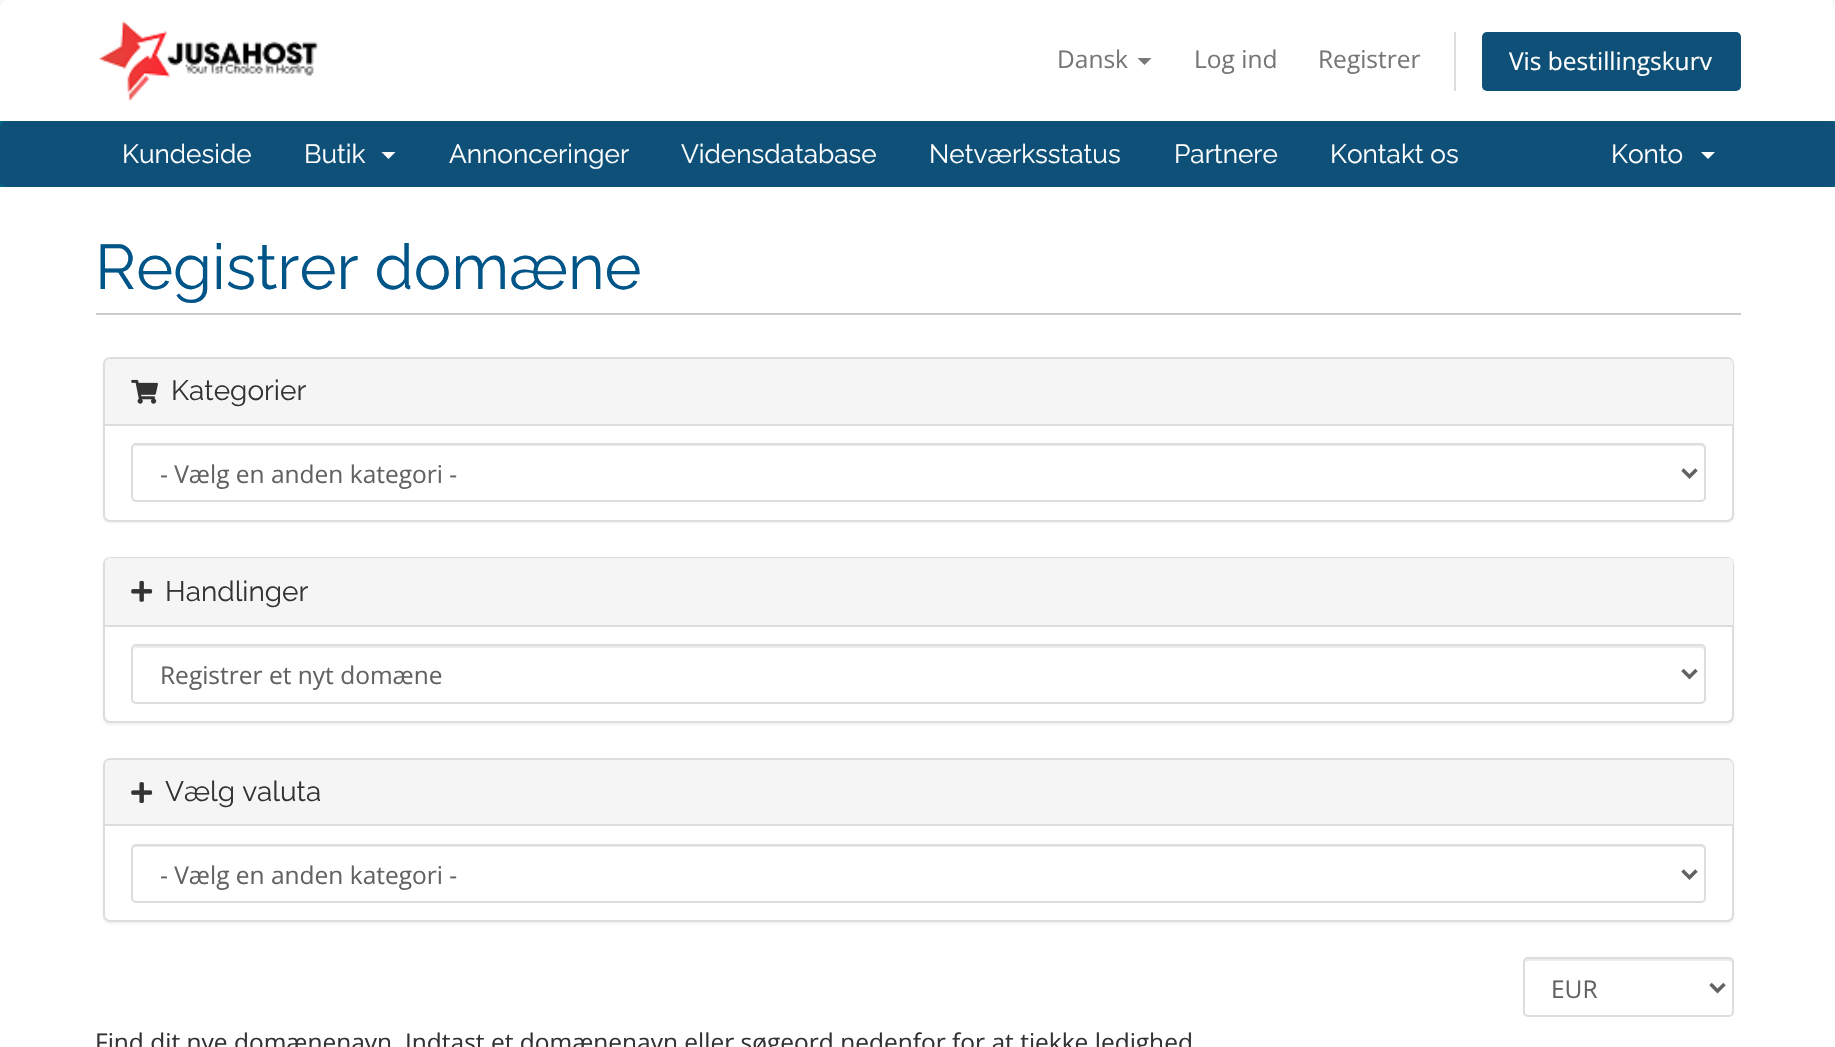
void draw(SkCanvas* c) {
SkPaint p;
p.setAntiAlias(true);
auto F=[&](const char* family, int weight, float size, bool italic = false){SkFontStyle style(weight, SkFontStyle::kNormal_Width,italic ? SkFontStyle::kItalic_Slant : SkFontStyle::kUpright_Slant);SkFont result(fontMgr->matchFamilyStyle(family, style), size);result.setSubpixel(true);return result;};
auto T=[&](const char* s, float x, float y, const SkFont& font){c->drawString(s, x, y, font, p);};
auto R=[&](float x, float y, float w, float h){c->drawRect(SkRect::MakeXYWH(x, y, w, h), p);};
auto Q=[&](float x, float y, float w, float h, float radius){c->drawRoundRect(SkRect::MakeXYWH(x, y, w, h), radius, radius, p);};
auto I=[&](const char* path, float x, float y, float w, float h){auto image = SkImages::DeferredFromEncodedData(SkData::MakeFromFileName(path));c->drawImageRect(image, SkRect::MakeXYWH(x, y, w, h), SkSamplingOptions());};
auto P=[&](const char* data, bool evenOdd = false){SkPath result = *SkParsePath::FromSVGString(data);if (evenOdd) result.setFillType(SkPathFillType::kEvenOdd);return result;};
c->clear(0xfff8f8f8);
p.setColor(0xffffffff);
c->drawPath(P("M9 0h1818c5 0 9 4 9 9v112h-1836v-112c0-5 4-9 9-9z"),p);
I("1.png",99,20,219,81);
auto f1 = F("Open Sans",400,24.5);
p.setColor(0xff777777);
T("Dansk",1057,68,f1);
c->drawPath(P("M1137.5 58h14l-7 7z"),p);
T("Log ind",1194,68,f1);
T("Registrer",1318,68,f1);
p.setColor(0xffdddddd);
R(1454,32,2,59);
p.setColor(0xff0e5077);
Q(1482,32,259,59,5);
p.setColor(0xffffffff);
T("Vis bestillingskurv",1509,70,f1);
p.setColor(0xff006687);
R(0,121,1835,66);
p.setColor(0xff0e5077);
Q(0,121,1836,66,7);
auto f2 = F("Raleway",400,26.25);
p.setColor(0xffffffff);
T("Kundeside",122,163,f2);
T("Butik",304,163,f2);
c->drawPath(P("M381.5 152h14l-7 7z"),p);
T("Annonceringer",449,163,f2);
T("Vidensdatabase",681,163,f2);
T("Netværksstatus",929,163,f2);
T("Partnere",1174,163,f2);
T("Kontakt os",1330,163,f2);
T("Konto",1611,163,f2);
c->drawPath(P("M1701 152h14l-7 7z"),p);
R(0,187,1835,860);
p.setColor(0xffcccccc);
R(96,313,1645,2);
auto f3 = F("Raleway",400,63);
p.setColor(0xff005588);
T("Registrer domæne",95,289,f3);
p.setColor(0x0d000000);
p.setMaskFilter(SkMaskFilter::MakeBlur(kNormal_SkBlurStyle, 1));
c->drawRoundRect(SkRect::MakeXYWH(103,359,1631,164),7,7,p);
p.setMaskFilter(nullptr);
p.setColor(0xffffffff);
c->drawRoundRect(SkRect::MakeXYWH(104,358,1629,163),6,6,p);
p.setStroke(true);
p.setStrokeWidth(2);
p.setColor(0xffdddddd);
c->drawRoundRect(SkRect::MakeXYWH(104,358,1629,163),6,6,p);
p.setStroke(false);
p.setColor(0xfff5f5f5);
c->drawPath(P("M110 359h1618c3 0 5 2 5 5v61h-1628v-61c0-3 2-5 5-5z"),p);
p.setColor(0xffdddddd);
R(105,424,1628,2);
I("2.png",131,379,27,25);
auto f4 = F("Raleway",400,28);
p.setColor(0xff333333);
T("Kategorier",171,400,f4);
p.setColor(0xffececec);
c->drawPath(P("M136 446h1565c2 0 3 2 3 4v50c1-1 1-2 1-3v-48c0-2-2-4-4-4h-1564c-2 0-4 2-4 4v1c0-2 2-4 3-4z"),p);
p.setStroke(true);
p.setColor(0xffdddddd);
c->drawRoundRect(SkRect::MakeXYWH(132,444,1573,57),4,4,p);
p.setStrokeWidth(3.5);
p.setColor(0xff626262);
c->drawPath(P("M1682.5 469.5l7 7l7-7"),p);
p.setStroke(false);
T("- Vælg en anden kategori -",160,483,f1);
p.setColor(0x0d000000);
p.setMaskFilter(SkMaskFilter::MakeBlur(kNormal_SkBlurStyle, 1));
c->drawRoundRect(SkRect::MakeXYWH(103,558,1631,167),7,7,p);
p.setMaskFilter(nullptr);
p.setColor(0xffffffff);
c->drawRoundRect(SkRect::MakeXYWH(104,558,1629,164),6,6,p);
p.setStroke(true);
p.setStrokeWidth(2);
p.setColor(0xffdddddd);
c->drawRoundRect(SkRect::MakeXYWH(104,558,1629,164),6,6,p);
p.setStroke(false);
p.setColor(0xfff5f5f5);
c->drawPath(P("M110 558h1618c3 0 5 2 5 5v64h-1628v-64c0-3 2-5 5-5z"),p);
p.setColor(0xffdddddd);
R(105,625,1628,2);
I("3.png",131,580,22,22);
p.setColor(0xff333333);
T("Handlinger",165,601,f4);
p.setColor(0xffececec);
c->drawPath(P("M136 648h1565c2 0 3 1 3 3v50c1-1 1-2 1-3v-48c0-2-2-4-4-4h-1564c-2 0-4 2-4 4v1c0-2 2-3 3-3z"),p);
p.setStroke(true);
p.setColor(0xffdddddd);
c->drawRoundRect(SkRect::MakeXYWH(132,645,1573,58),4,4,p);
p.setStrokeWidth(3.5);
p.setColor(0xff626262);
c->drawPath(P("M1682.5 670l7 7l7-7"),p);
p.setStroke(false);
T("Registrer et nyt domæne",160,684,f1);
p.setColor(0x0d000000);
p.setMaskFilter(SkMaskFilter::MakeBlur(kNormal_SkBlurStyle, 1));
c->drawRoundRect(SkRect::MakeXYWH(103,760,1631,164),7,7,p);
p.setMaskFilter(nullptr);
p.setColor(0xffffffff);
c->drawRoundRect(SkRect::MakeXYWH(104,759,1629,162),6,6,p);
p.setStroke(true);
p.setStrokeWidth(2);
p.setColor(0xffdddddd);
c->drawRoundRect(SkRect::MakeXYWH(104,759,1629,162),6,6,p);
p.setStroke(false);
p.setColor(0xfff5f5f5);
c->drawPath(P("M110 760h1618c3 0 5 2 5 5v61h-1628v-61c0-3 2-5 5-5z"),p);
p.setColor(0xffdddddd);
R(105,824,1628,2);
I("4.png",131,782,22,21);
p.setColor(0xff333333);
T("Vælg valuta",165,801,f4);
p.setColor(0xffececec);
c->drawPath(P("M136 847h1565c2 0 3 2 3 3v50c1-1 1-2 1-3v-48c0-2-2-4-4-4h-1564c-2 0-4 2-4 4v1c0-1 2-3 3-3z"),p);
p.setStroke(true);
p.setColor(0xffdddddd);
c->drawRoundRect(SkRect::MakeXYWH(132,845,1573,57),4,4,p);
p.setStrokeWidth(3.5);
p.setColor(0xff626262);
c->drawPath(P("M1682.5 870.5l7 7l7-7"),p);
p.setStroke(false);
T("- Vælg en anden kategori -",160,884,f1);
p.setColor(0xffececec);
c->drawPath(P("M1528 961h201c2 0 3 1 3 3v50c1-1 1-2 1-3v-48c0-2-2-4-4-4h-201c-2 0-4 2-4 4v1c0-2 2-3 4-3z"),p);
p.setStroke(true);
p.setStrokeWidth(2);
p.setColor(0xffdddddd);
c->drawRoundRect(SkRect::MakeXYWH(1524,958,209,58),4,4,p);
p.setStrokeWidth(3.5);
p.setColor(0xff626262);
c->drawPath(P("M1710.5 984l7 7l7-7"),p);
p.setStroke(false);
T("EUR",1551,998,f1);
p.setColor(0xff333333);
T("Find dit nye domænenavn. Indtast et domænenavn eller søgeord nedenfor for at tjekke ledighed",95,1051,f1);
}
